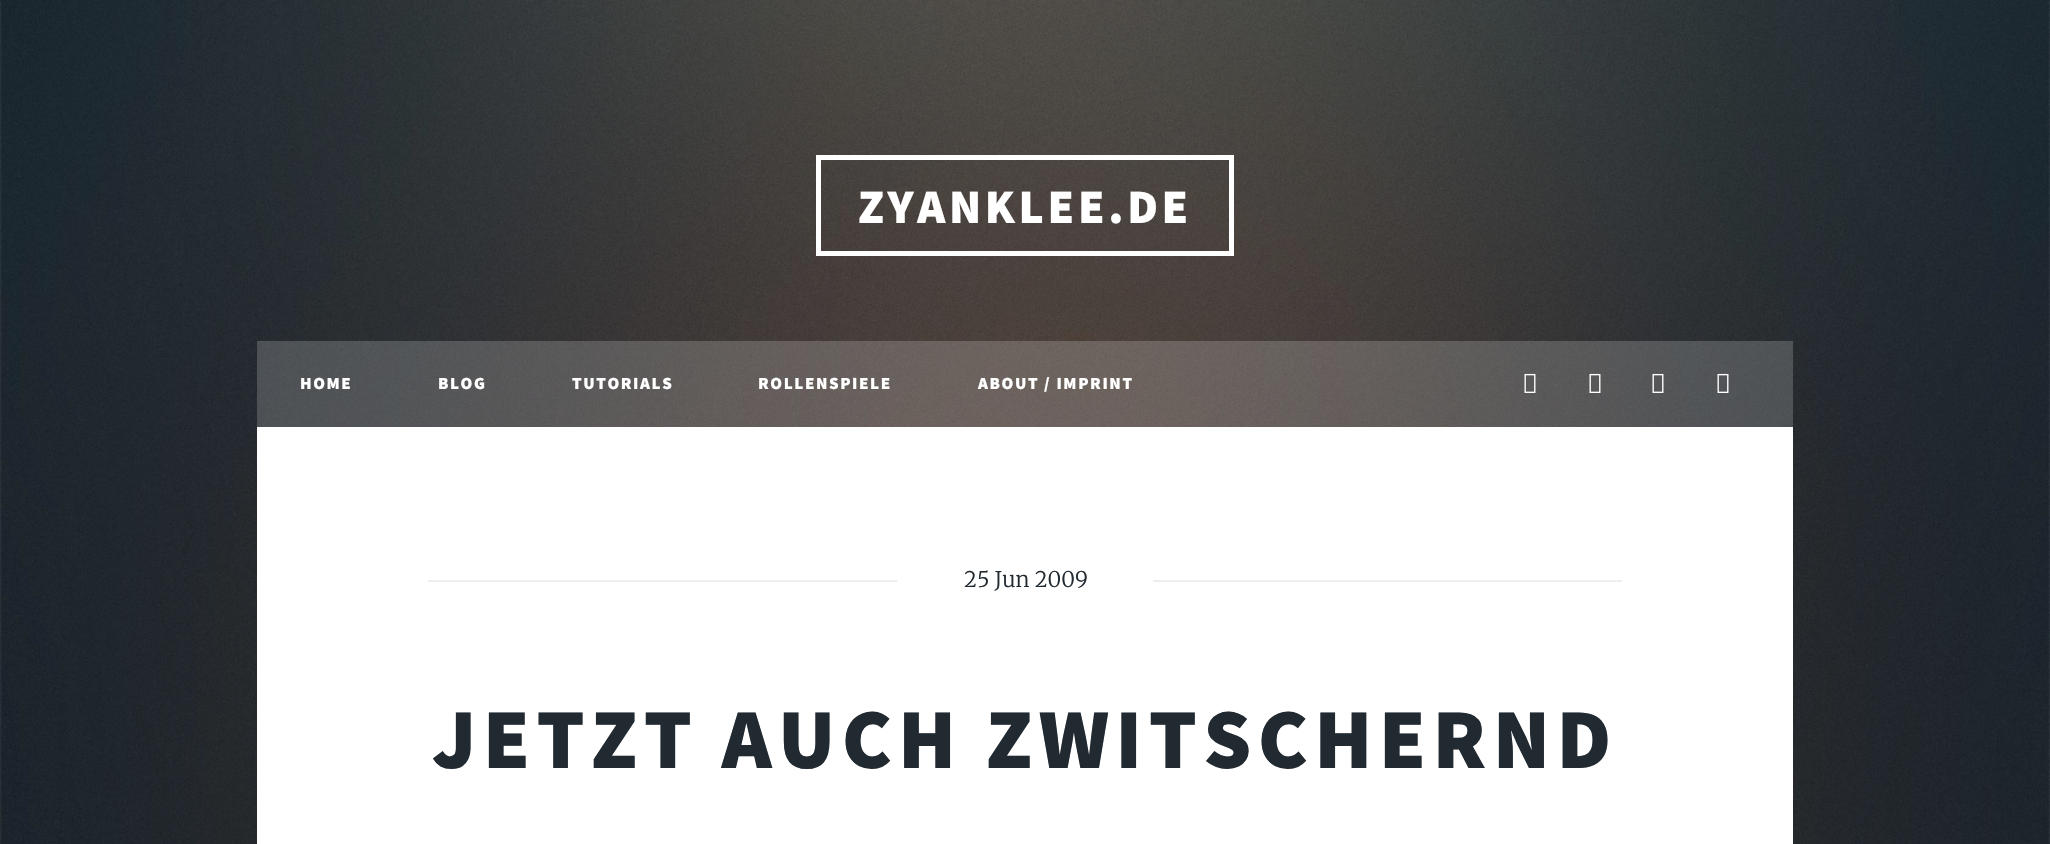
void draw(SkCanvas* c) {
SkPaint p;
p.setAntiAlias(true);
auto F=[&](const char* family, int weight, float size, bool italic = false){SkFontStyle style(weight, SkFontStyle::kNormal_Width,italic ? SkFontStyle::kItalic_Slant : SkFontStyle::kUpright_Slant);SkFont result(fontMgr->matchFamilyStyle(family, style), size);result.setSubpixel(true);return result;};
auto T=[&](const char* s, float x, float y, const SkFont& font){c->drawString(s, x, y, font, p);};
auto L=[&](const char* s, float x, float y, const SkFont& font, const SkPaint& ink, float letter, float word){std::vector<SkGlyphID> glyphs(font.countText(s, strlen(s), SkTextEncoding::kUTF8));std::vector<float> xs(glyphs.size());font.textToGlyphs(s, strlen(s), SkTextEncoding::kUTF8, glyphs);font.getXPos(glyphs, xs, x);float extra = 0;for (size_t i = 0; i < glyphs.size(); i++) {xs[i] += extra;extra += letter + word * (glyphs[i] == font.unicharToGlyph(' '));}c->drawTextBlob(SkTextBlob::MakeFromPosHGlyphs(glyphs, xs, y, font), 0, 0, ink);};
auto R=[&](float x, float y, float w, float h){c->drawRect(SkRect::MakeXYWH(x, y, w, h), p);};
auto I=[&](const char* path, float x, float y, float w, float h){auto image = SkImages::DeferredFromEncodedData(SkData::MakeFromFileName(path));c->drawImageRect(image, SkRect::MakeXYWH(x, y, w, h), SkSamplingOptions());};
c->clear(0xffffffff);
I("1.png",0,0,2050,844);
p.setStroke(true);
p.setStrokeWidth(5);
p.setColor(0xffffffff);
c->drawRect(SkRect::MakeXYWH(818.5,157.5,413,96),p);
auto f1 = F("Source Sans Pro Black",900,48);
p.setStroke(false);
L("ZYANKLEE.DE",858,223,f1,p,3.6,0);
p.setColor(0x2effffff);
R(257,341,1536,86);
auto f2 = F("Source Sans Pro Black",900,17);
p.setColor(0xffffffff);
L("HOME",300,389,f2,p,1.6,0);
L("BLOG",438,389,f2,p,1.6,0);
L("TUTORIALS",572,389,f2,p,1.6,0);
L("ROLLENSPIELE",758,389,f2,p,1.6,0);
L("ABOUT / IMPRINT",978,389,f2,p,1.6,0);
I("2.png",1524,373,12,20);
I("3.png",1589,373,12,20);
I("4.png",1652,373,12,20);
I("5.png",1717,373,12,20);
R(257,427,1536,417);
p.setColor(0xffeeeeee);
R(428,580,469,2);
auto f3 = F("Merriweather",300,21.5);
p.setColor(0xff212931);
T("25 Jun 2009",964,587,f3);
p.setColor(0xffeeeeee);
R(1153,580,469,2);
auto f4 = F("Source Sans Pro Black",900,85.3);
p.setColor(0xff212931);
L("JETZT AUCH ZWITSCHERND",432,768,f4,p,6.4,0);
}
